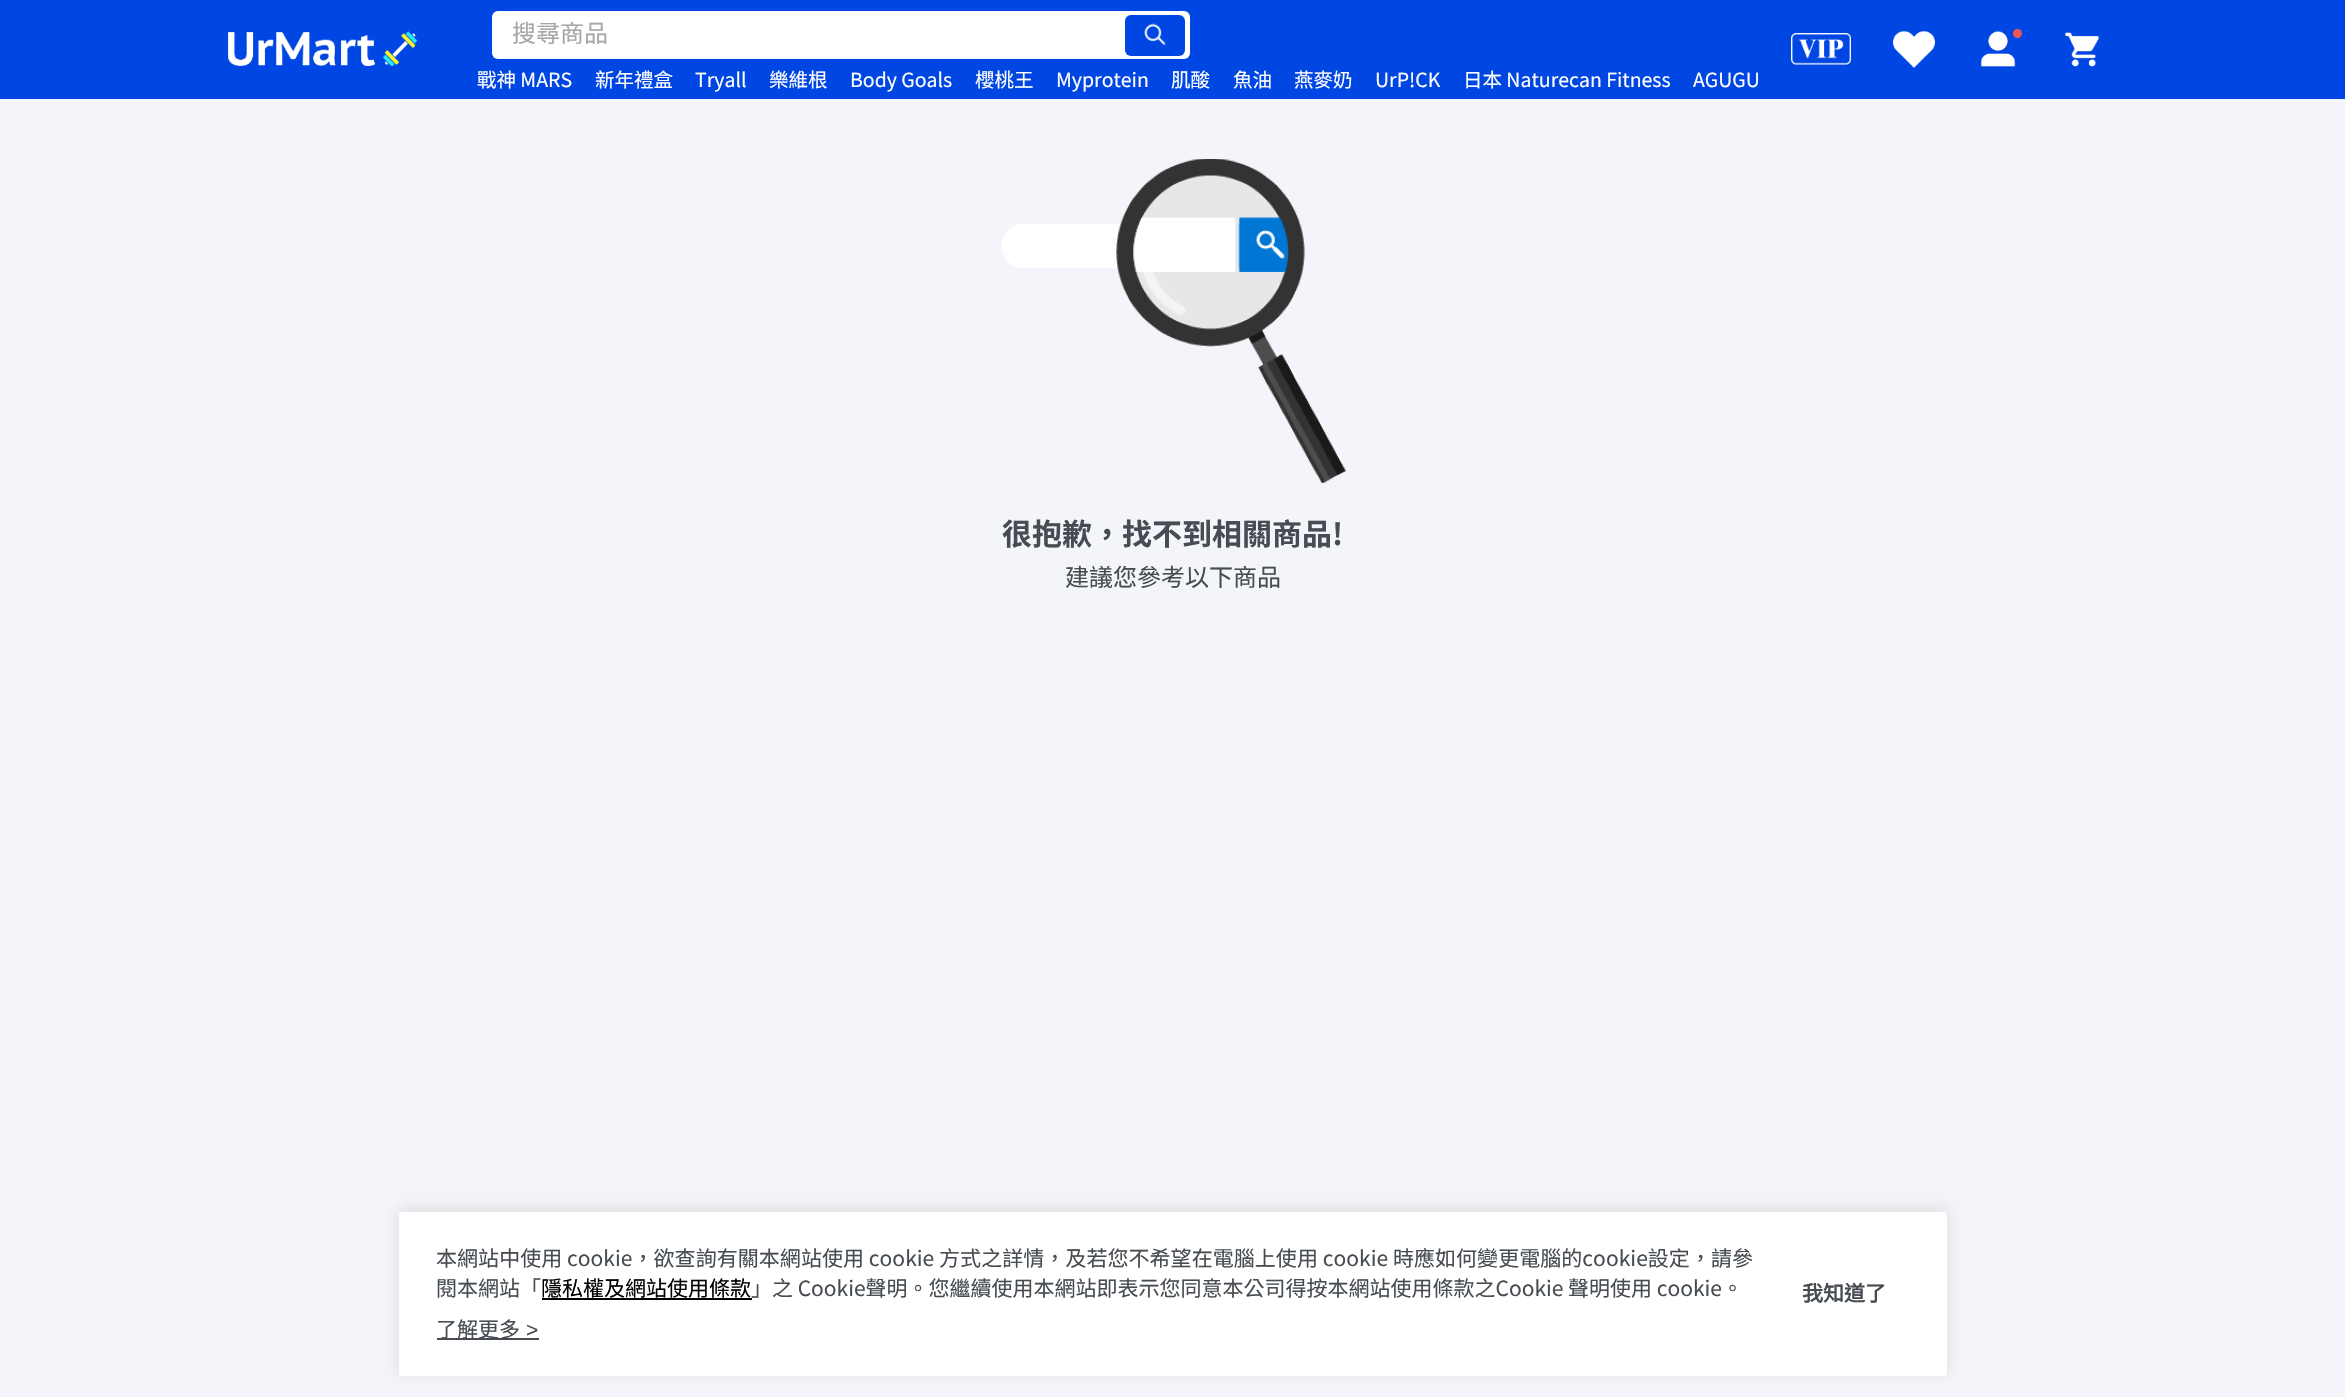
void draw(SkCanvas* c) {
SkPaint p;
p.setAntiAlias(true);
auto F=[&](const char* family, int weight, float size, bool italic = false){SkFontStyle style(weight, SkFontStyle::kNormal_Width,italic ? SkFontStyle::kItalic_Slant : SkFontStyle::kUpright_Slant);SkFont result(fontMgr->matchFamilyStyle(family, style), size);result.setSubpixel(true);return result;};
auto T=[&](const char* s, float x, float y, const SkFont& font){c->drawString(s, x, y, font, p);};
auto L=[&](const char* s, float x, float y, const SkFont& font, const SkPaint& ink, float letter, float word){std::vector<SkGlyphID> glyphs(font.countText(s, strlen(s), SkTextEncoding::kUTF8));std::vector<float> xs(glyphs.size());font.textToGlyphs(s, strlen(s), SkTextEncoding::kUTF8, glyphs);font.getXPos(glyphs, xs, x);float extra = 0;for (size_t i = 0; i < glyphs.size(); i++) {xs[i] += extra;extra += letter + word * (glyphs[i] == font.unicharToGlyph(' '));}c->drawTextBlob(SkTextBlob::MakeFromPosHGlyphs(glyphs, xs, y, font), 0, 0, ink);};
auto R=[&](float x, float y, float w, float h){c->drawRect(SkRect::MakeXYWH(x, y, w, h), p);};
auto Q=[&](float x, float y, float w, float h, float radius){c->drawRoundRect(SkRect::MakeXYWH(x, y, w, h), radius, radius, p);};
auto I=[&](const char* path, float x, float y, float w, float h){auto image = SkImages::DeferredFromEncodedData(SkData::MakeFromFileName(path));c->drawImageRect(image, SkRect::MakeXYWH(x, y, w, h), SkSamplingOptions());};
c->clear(0xfff4f5fa);
p.setColor(0xff0046e2);
R(0,0,2345,99);
I("1.png",228,31,189,35);
p.setColor(0xffffffff);
Q(492,11,698,48,6);
auto f1 = F("Noto Sans CJK TC",400,24);
p.setColor(0xffa7a7a7);
T("搜尋商品",512,42,f1);
p.setColor(0xff0046e2);
Q(1125,15,60,41,6);
I("2.png",1144,23,22,22);
auto f2 = F("Noto Sans TC",400,19.5);
p.setColor(0xffffffff);
T("戰神 MARS",477,87,f2);
T("新年禮盒",595,87,f2);
T("Tryall",695,87,f2);
T("樂維根",769,87,f2);
T("Body Goals",850,87,f2);
T("櫻桃王",975,87,f2);
T("Myprotein",1056,87,f2);
T("肌酸",1171,87,f2);
T("魚油",1233,87,f2);
T("燕麥奶",1294,87,f2);
T("UrP!CK",1375,87,f2);
T("日本 Naturecan Fitness",1463,87,f2);
T("AGUGU",1693,87,f2);
I("3.png",1791,33,60,32);
I("4.png",1893,30,42,38);
I("5.png",1980,31,36,36);
p.setColor(0xffeb5757);
c->drawCircle(2017.5,33.5,4.5,p);
I("6.png",2064,32,36,35);
I("7.png",1001,159,345,324);
auto f3 = F("Noto Sans TC",700,30);
p.setColor(0xff464c51);
T("很抱歉，找不到相關商品!",1002,545,f3);
auto f4 = F("Noto Sans TC",400,24);
T("建議您參考以下商品",1065,586,f4);
p.setColor(0x1a000000);
p.setMaskFilter(SkMaskFilter::MakeBlur(kNormal_SkBlurStyle, 7.5));
c->drawRoundRect(SkRect::MakeXYWH(399,1209,1548,164),3,3,p);
p.setMaskFilter(nullptr);
p.setColor(0xffffffff);
Q(399,1212,1548,164,3);
auto f5 = F("Noto Sans TC",400,21);
p.setColor(0xff464c51);
L("本網站中使用 cookie，欲查詢有關本網站使用 cookie 方式之詳情，及若您不希望在電腦上使用 cookie 時應如何變更電腦的cookie設定，請參",436,1266,f5,p,.05,0);
T("閱本網站「",436,1296,f5);
p.setColor(0xff000000);
T("隱私權及網站使用條款",541,1296,f5);
R(542,1298,210,2);
p.setColor(0xff464c51);
T("」之 Cookie聲明。您繼續使用本網站即表示您同意本公司得按本網站使用條款之Cookie 聲明使用 cookie。",751,1296,f5);
R(437,1338,102,2);
auto f6 = F("Noto Sans CJK TC",400,21);
T("了解更多",436,1337,f6);
auto f7 = F("Liberation Sans",400,21);
T(">",526,1337,f7);
auto f8 = F("Noto Sans CJK TC",700,21);
T("我知道了",1802,1301,f8);
}
